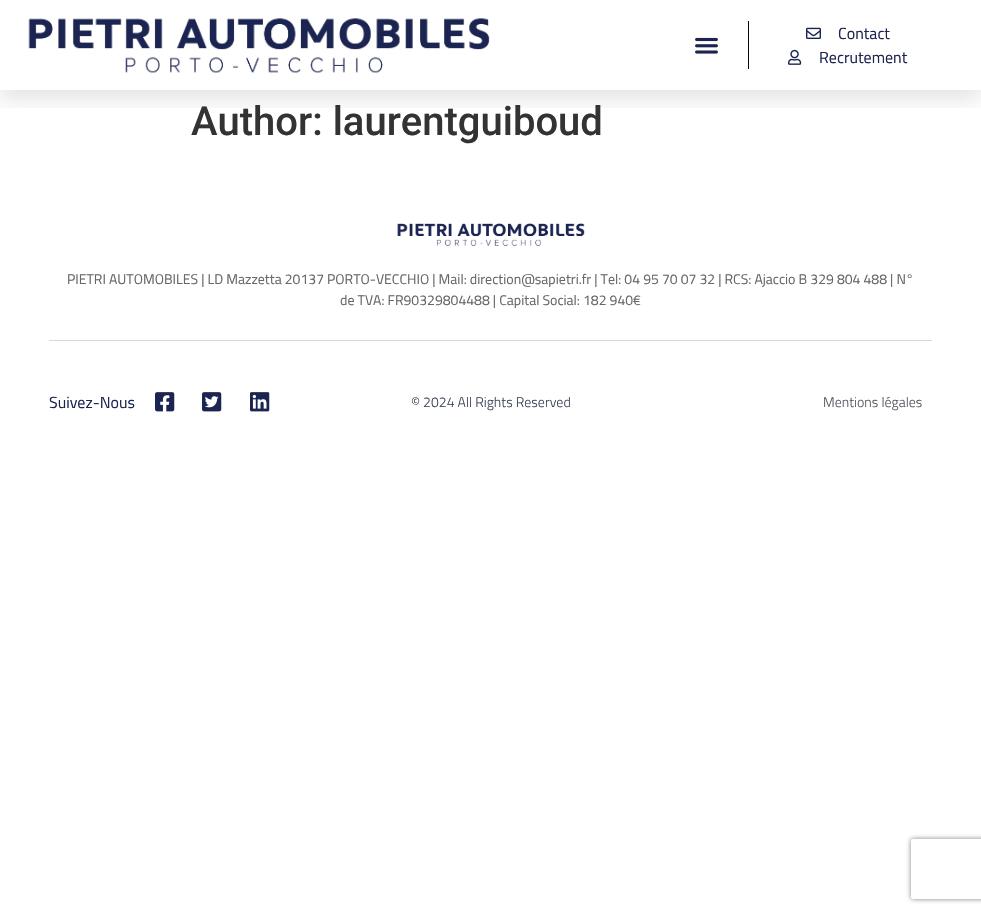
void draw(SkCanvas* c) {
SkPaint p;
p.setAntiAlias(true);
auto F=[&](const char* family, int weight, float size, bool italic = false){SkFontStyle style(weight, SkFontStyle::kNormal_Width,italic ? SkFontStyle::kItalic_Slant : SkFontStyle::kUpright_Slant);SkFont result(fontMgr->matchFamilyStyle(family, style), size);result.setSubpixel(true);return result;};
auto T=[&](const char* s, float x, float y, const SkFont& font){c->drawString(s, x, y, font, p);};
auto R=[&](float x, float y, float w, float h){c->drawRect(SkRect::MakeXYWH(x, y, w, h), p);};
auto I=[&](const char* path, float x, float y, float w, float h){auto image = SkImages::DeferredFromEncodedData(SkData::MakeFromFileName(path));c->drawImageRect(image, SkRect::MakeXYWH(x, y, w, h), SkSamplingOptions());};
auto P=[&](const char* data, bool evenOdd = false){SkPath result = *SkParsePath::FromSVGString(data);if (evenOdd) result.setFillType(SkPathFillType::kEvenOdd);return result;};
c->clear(0xffffffff);
c->save();
c->clipRect(SkRect::MakeXYWH(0,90,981,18));
p.setColor(0x1a000000);
p.setMaskFilter(SkMaskFilter::MakeBlur(kNormal_SkBlurStyle, 10));
c->drawRect(SkRect::MakeXYWH(0,10,981,90),p);
p.setMaskFilter(nullptr);
c->restore();
I("1.png",28,18,462,55);
I("2.png",695,37,23,17);
p.setColor(0xff080808);
R(748,21,1,48);
I("3.png",806,27,15,12);
auto f1 = F("Titillium Web",400,16);
p.setColor(0xff1c2551);
T("Contact",838,39,f1);
I("4.png",788,49,14,16);
T("Recrutement",819,63,f1);
auto f2 = F("Roboto",500,40);
p.setColor(0xff333333);
T("Author: laurentguiboud",191,135,f2);
I("5.png",397,223,188,23);
auto f3 = F("Titillium Web",400,14);
p.setColor(0xff666666);
T("PIETRI AUTOMOBILES | LD Mazzetta 20137 PORTO-VECCHIO | Mail: direction@sapietri.fr | Tel: 04 95 70 07 32 | RCS: Ajaccio B 329 804 488 | N°",67,284,f3);
T("de TVA: FR90329804488 | Capital Social: 182 940€",340,305,f3);
p.setColor(0xffd8d8d8);
R(49,340,883,1);
p.setColor(0xff1c2551);
T("Suivez-Nous",49,408,f1);
I("6.png",155,392,20,20);
I("7.png",202,392,20,20);
I("8.png",250,392,20,20);
auto f4 = F("Titillium Web",300,14);
p.setColor(0xff3d4459);
T("© 2024 All Rights Reserved",411,407,f4);
p.setColor(0xff54595f);
T("Mentions légales",823,407,f4);
c->save();
c->clipPath(P("M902 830h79v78h-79zm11 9h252c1 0 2 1 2 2v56c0 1-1 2-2 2h-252c-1 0-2-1-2-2v-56c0-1 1-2 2-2z",true),true);
p.setColor(0xff808080);
p.setMaskFilter(SkMaskFilter::MakeBlur(kNormal_SkBlurStyle, 2.5));
c->drawRoundRect(SkRect::MakeXYWH(911,839,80,60),2,2,p);
p.setMaskFilter(nullptr);
c->restore();
}
